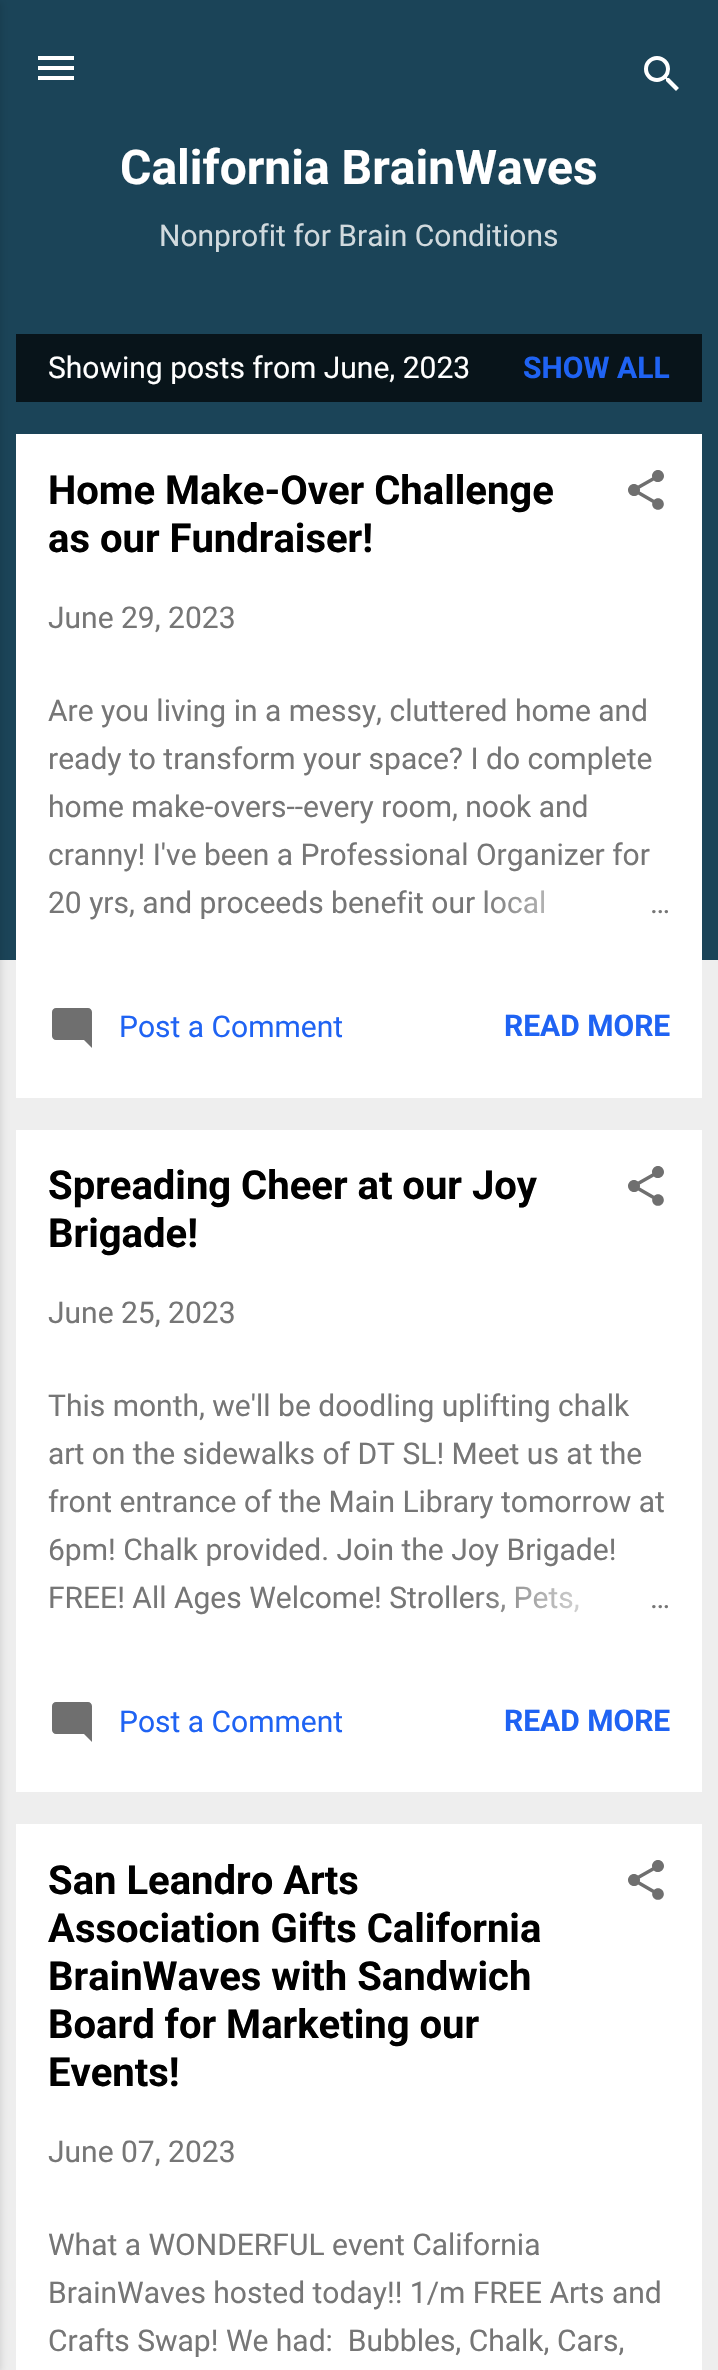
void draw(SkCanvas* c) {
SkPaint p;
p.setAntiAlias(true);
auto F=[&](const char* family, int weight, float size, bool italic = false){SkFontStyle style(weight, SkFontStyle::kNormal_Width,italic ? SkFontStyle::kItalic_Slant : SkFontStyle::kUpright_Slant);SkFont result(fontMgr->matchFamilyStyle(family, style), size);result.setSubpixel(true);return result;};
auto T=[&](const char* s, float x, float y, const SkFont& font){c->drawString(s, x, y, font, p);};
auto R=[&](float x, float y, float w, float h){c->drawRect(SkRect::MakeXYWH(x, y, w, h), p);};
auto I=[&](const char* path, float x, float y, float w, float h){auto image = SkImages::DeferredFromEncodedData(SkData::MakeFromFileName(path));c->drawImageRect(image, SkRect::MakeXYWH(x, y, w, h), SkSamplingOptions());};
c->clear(0xffeeeeee);
p.setColor(0xff1b4458);
R(0,0,718,960);
p.setColor(0x1a000000);
p.setMaskFilter(SkMaskFilter::MakeBlur(kNormal_SkBlurStyle, 3));
c->drawRect(SkRect::MakeXYWH(-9,2,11,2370),p);
p.setMaskFilter(nullptr);
I("1.png",38,56,36,24);
I("2.png",644,56,35,35);
auto f1 = F("Roboto",700,48);
p.setColor(0xffffffff);
T("California BrainWaves",120,184,f1);
auto f2 = F("Roboto",400,30);
p.setColor(0xffd1dade);
T("Nonprofit for Brain Conditions",159,246,f2);
p.setColor(0xff08141a);
R(16,334,686,68);
p.setColor(0xffffffff);
T("Showing posts from June, 2023",48,378,f2);
auto f3 = F("Roboto",700,30);
p.setColor(0xff1f63f3);
T("SHOW ALL",523,378,f3);
p.setColor(0xffffffff);
R(16,434,686,664);
auto f4 = F("Roboto",700,40);
p.setColor(0xff000000);
T("Home Make-Over Challenge",48,504,f4);
T("as our Fundraiser!",48,552,f4);
I("3.png",628,470,36,40);
p.setColor(0xff767676);
T("June 29, 2023",48,628,f2);
T("Are you living in a messy, cluttered home and",48,721,f2);
T("ready to transform your space? I do complete",48,769,f2);
T("home make-overs--every room, nook and",48,817,f2);
T("cranny! I've been a Professional Organizer for",48,865,f2);
T("20 yrs, and proceeds benefit our local",48,913,f2);
{
const SkColor colors[] = {0xffffffff,0xffffffff,0x00ffffff};
const float stops[] = {0,.2,1};
const SkPoint ends[] = {{670,904}, {478,904}};
p.setShader(SkGradientShader::MakeLinear(ends, colors, stops, 3, SkTileMode::kClamp));
p.setAlpha(255);
}
R(485,890,59,24);
p.setShader(nullptr);
p.setColor(0xff767676);
T("…",650,913,f2);
I("4.png",52,1008,40,40);
p.setColor(0xff1f63f3);
T("Post a Comment",119,1037,f2);
T("READ MORE",504,1036,f3);
p.setColor(0xffffffff);
R(16,1130,686,662);
p.setColor(0xff000000);
T("Spreading Cheer at our Joy",48,1199,f4);
T("Brigade!",48,1247,f4);
I("5.png",628,1166,36,40);
p.setColor(0xff767676);
T("June 25, 2023",48,1323,f2);
T("This month, we'll be doodling uplifting chalk",48,1416,f2);
T("art on the sidewalks of DT SL! Meet us at the",48,1464,f2);
T("front entrance of the Main Library tomorrow at",48,1512,f2);
T("6pm! Chalk provided. Join the Joy Brigade!",48,1560,f2);
T("FREE! All Ages Welcome! Strollers, Pets,",48,1608,f2);
{
const SkColor colors[] = {0xffffffff,0xffffffff,0x00ffffff};
const float stops[] = {0,.2,1};
const SkPoint ends[] = {{670,1598}, {478,1598}};
p.setShader(SkGradientShader::MakeLinear(ends, colors, stops, 3, SkTileMode::kClamp));
p.setAlpha(255);
}
R(481,1586,98,27);
p.setShader(nullptr);
p.setColor(0xff767676);
T("…",650,1608,f2);
I("6.png",52,1702,40,40);
p.setColor(0xff1f63f3);
T("Post a Comment",119,1732,f2);
T("READ MORE",504,1731,f3);
p.setColor(0xffffffff);
R(16,1824,686,546);
p.setColor(0xff000000);
T("San Leandro Arts",48,1894,f4);
T("Association Gifts California",48,1942,f4);
T("BrainWaves with Sandwich",48,1990,f4);
T("Board for Marketing our",48,2038,f4);
T("Events!",48,2086,f4);
I("5.png",628,1860,36,40);
p.setColor(0xff767676);
T("June 07, 2023",48,2162,f2);
T("What a WONDERFUL event California",48,2255,f2);
T("BrainWaves hosted today!! 1/m FREE Arts and",48,2303,f2);
T("Crafts Swap! We had:  Bubbles, Chalk, Cars,",48,2351,f2);
}
